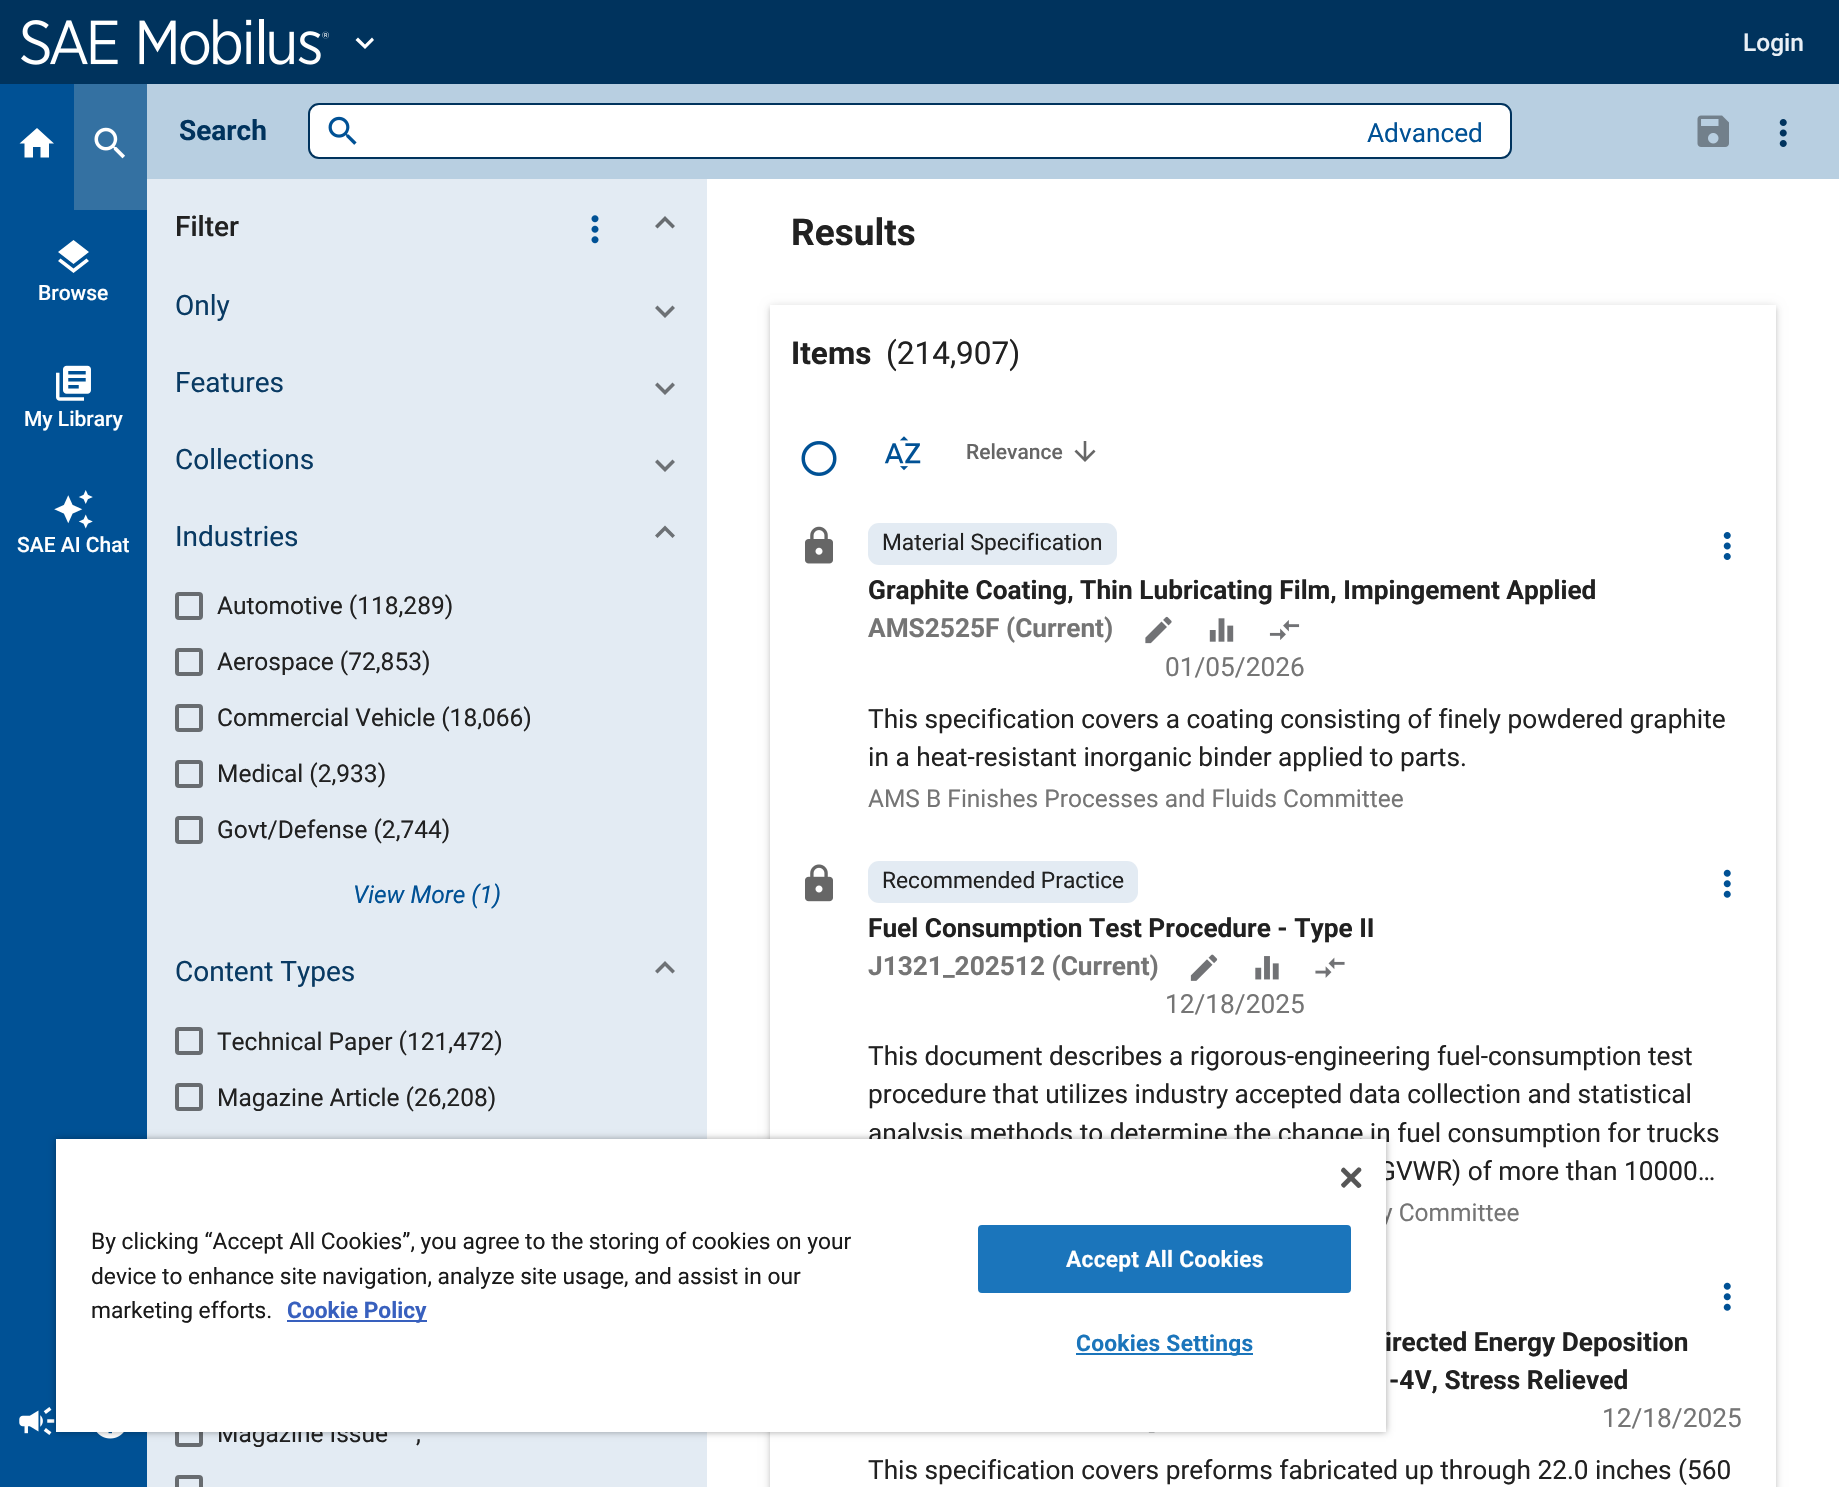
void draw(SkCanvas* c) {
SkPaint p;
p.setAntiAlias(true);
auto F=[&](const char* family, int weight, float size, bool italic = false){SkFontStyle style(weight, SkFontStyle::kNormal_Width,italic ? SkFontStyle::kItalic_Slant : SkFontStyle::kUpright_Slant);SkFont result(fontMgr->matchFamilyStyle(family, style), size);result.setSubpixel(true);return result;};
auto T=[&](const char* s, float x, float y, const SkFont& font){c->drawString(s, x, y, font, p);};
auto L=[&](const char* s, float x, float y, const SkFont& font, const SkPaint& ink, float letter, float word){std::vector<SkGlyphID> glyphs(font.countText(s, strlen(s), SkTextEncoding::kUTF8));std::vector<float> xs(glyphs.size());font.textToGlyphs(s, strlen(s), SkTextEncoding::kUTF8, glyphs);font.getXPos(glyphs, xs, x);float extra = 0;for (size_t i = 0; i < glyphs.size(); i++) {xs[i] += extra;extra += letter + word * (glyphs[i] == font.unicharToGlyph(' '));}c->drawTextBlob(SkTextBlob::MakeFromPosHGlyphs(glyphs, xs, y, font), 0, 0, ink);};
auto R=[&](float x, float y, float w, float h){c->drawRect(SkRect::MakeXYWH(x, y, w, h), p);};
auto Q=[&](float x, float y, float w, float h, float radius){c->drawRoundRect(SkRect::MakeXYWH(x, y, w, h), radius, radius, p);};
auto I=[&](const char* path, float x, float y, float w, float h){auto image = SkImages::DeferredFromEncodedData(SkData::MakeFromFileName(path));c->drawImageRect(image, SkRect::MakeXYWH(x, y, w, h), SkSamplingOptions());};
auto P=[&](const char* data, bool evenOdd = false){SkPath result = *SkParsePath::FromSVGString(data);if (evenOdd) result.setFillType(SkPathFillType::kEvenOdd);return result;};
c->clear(0xffffffff);
p.setColor(0xff00335d);
R(0,0,1839,84);
I("1.png",21,19,308,46);
p.setColor(0xffffffff);
c->drawPath(P("M372 37.5l2 2.5l-9 9l-9.5-9l2.5-2.5l7 7z"),p);
auto f1 = F("Roboto",500,24.5);
p.setColor(0xffe9f0f6);
T("Login",1743,51,f1);
p.setColor(0xff005195);
R(0,84,147,1403);
p.setColor(0xffffffff);
c->drawPath(P("M33 157.5h-8.5v-14h-5l17.5-15.5l17 15.5h-5v14h-8.5v-10.5h-7.5z"),p);
p.setColor(0xff3471a2);
R(74,84,73,126);
I("2.png",94,127,31,32);
p.setColor(0xffffffff);
c->drawPath(P("M73.5 264l-15.5-12l15.5-12l15.5 12zm0 4.5l13-10l2.5 2.5l-15.5 12l-15.5-12l2.5-2.5z"),p);
auto f2 = F("Roboto",500,21);
T("Browse",38,300,f2);
I("3.png",56,365,35,36);
T("My Library",24,426,f2);
I("4.png",54,490,39,39);
T("SAE AI Chat",17,552,f2);
I("5.png",19,1407,36,28);
I("6.png",96,1432,28,7);
p.setColor(0xffb8cfe1);
R(147,84,1692,95);
auto f3 = F("Roboto",700,28);
p.setColor(0xff00335d);
T("Search",179,140,f3);
p.setColor(0xffffffff);
c->drawRoundRect(SkRect::MakeXYWH(309,104,1202,54),10,10,p);
p.setStroke(true);
p.setStrokeWidth(2);
p.setColor(0xff00335d);
c->drawRoundRect(SkRect::MakeXYWH(309,104,1202,54),10,10,p);
I("7.png",328,116,29,29);
auto f4 = F("Roboto",400,26.25);
p.setStroke(false);
p.setColor(0xff005195);
T("Advanced",1367,142,f4);
I("8.png",1697,115,32,32);
I("9.png",1779,119,8,28);
p.setColor(0xffe3ebf3);
R(147,179,560,1308);
auto f5 = F("Roboto",500,28);
p.setColor(0xff212121);
T("Filter",175,236,f5);
p.setColor(0xff686c70);
c->drawPath(P("M655 226l10-10v5l-7.5 7.5zm10-10l10 10l-2.5 2.5l-7.5-7.5z"),p);
I("10.png",591,215,8,29);
auto f6 = F("Roboto",400,28);
p.setColor(0xff093a63);
T("Only",175,315,f6);
p.setColor(0xff6d7175);
c->drawPath(P("M675 308l-10 10v-5l7.5-7.5zm-10 10l-10-10l2.5-2.5l7.5 7.5z"),p);
p.setColor(0xff093a63);
T("Features",175,392,f6);
p.setColor(0xff6d7175);
c->drawPath(P("M675 385l-10 10v-5l7.5-7.5zm-10 10l-10-10l2.5-2.5l7.5 7.5z"),p);
p.setColor(0xff093a63);
T("Collections",175,469,f6);
p.setColor(0xff6d7175);
c->drawPath(P("M675 462l-10 10v-5l7.5-7.5zm-10 10l-10-10l2.5-2.5l7.5 7.5z"),p);
p.setColor(0xff093a63);
T("Industries",175,546,f6);
p.setColor(0xff6d7175);
c->drawPath(P("M655 535.5l10-10v5l-7.5 7.5zm10-10l10 10l-2.5 2.5l-7.5-7.5z"),p);
p.setStroke(true);
p.setStrokeWidth(4);
p.setColor(0xff686c70);
c->drawRoundRect(SkRect::MakeXYWH(177,594,24,24),2,2,p);
auto f7 = F("Roboto",400,24.5);
p.setStroke(false);
p.setColor(0xff212121);
T("Automotive (118,289)",217,614,f7);
p.setStroke(true);
p.setColor(0xff686c70);
c->drawRoundRect(SkRect::MakeXYWH(177,650,24,24),2,2,p);
p.setStroke(false);
p.setColor(0xff212121);
T("Aerospace (72,853)",217,670,f7);
p.setStroke(true);
p.setColor(0xff686c70);
c->drawRoundRect(SkRect::MakeXYWH(177,706,24,24),2,2,p);
p.setStroke(false);
p.setColor(0xff212121);
T("Commercial Vehicle (18,066)",217,726,f7);
p.setStroke(true);
p.setColor(0xff686c70);
c->drawRoundRect(SkRect::MakeXYWH(177,762,24,24),2,2,p);
p.setStroke(false);
p.setColor(0xff212121);
T("Medical (2,933)",217,782,f7);
p.setStroke(true);
p.setColor(0xff686c70);
c->drawRoundRect(SkRect::MakeXYWH(177,818,24,24),2,2,p);
p.setStroke(false);
p.setColor(0xff212121);
T("Govt/Defense (2,744)",217,838,f7);
auto f8 = F("Roboto",400,24.5,true);
p.setColor(0xff005195);
T("View More (1)",353,903,f8);
p.setColor(0xff093a63);
T("Content Types",175,981,f6);
p.setColor(0xff6d7175);
c->drawPath(P("M655 971l10-10v5l-7.5 7.5zm10-10l10 10l-2.5 2.5l-7.5-7.5z"),p);
p.setStroke(true);
p.setColor(0xff686c70);
c->drawRoundRect(SkRect::MakeXYWH(177,1029,24,24),2,2,p);
p.setStroke(false);
p.setColor(0xff212121);
T("Technical Paper (121,472)",217,1050,f7);
p.setStroke(true);
p.setColor(0xff686c70);
c->drawRoundRect(SkRect::MakeXYWH(177,1085,24,24),2,2,p);
p.setStroke(false);
p.setColor(0xff212121);
T("Magazine Article (26,208)",217,1106,f7);
p.setStroke(true);
p.setColor(0xff686c70);
c->drawRoundRect(SkRect::MakeXYWH(177,1421,24,24),2,2,p);
p.setStroke(false);
p.setColor(0xff212121);
T("Magazine Issue",217,1442,f7);
T(",",416,1442,f7);
p.setStroke(true);
p.setColor(0xff686c70);
c->drawRoundRect(SkRect::MakeXYWH(177,1477,24,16),2,2,p);
auto f9 = F("Roboto",700,37);
p.setStroke(false);
p.setColor(0xff212121);
T("Results",791,245,f9);
c->save();
c->clipPath(P("M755 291h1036v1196h-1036zm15 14h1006v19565h-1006z",true),true);
p.setColor(0x1f000000);
p.setMaskFilter(SkMaskFilter::MakeBlur(kNormal_SkBlurStyle, 4.5));
c->drawRect(SkRect::MakeXYWH(770,306,1006,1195),p);
p.setMaskFilter(nullptr);
c->restore();
c->save();
c->clipPath(P("M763 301h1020v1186h-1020zm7 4h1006v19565h-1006z",true),true);
p.setColor(0x24000000);
p.setMaskFilter(SkMaskFilter::MakeBlur(kNormal_SkBlurStyle, 2));
c->drawRect(SkRect::MakeXYWH(770,308,1006,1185),p);
p.setMaskFilter(nullptr);
c->restore();
auto f10 = F("Roboto",700,31.5);
p.setColor(0xff212121);
T("Items",791,364,f10);
auto f11 = F("Roboto",400,31.5);
T("(214,907)",886,364,f11);
I("11.png",801,441,36,35);
I("12.png",884,436,37,35);
p.setColor(0xff666666);
T("Relevance",966,459,f2);
I("13.png",1074,441,22,21);
p.setColor(0xffe3ebf3);
Q(868,523,249,42,11);
auto f12 = F("Roboto",400,22.75);
p.setColor(0xff212121);
T("Material Specification",882,550,f12);
I("14.png",1723,532,8,28);
I("15.png",805,526,28,38);
auto f13 = F("Roboto",700,26.25);
T("Graphite Coating, Thin Lubricating Film, Impingement Applied",868,599,f13);
p.setColor(0xff757575);
T("AMS2525F (Current)",868,637,f13);
I("16.png",1145,616,27,28);
I("17.png",1209,618,25,24);
I("18.png",1269,620,31,20);
T("01/05/2026",1165,676,f4);
p.setColor(0xff212121);
T("This specification covers a coating consisting of finely powdered graphite",868,728,f4);
T("in a heat-resistant inorganic binder applied to parts.",868,766,f4);
p.setColor(0xff757575);
T("AMS B Finishes Processes and Fluids Committee",868,807,f7);
p.setColor(0xffe3ebf3);
Q(868,861,270,42,11);
p.setColor(0xff212121);
T("Recommended Practice",882,888,f12);
I("19.png",1723,869,8,29);
I("20.png",805,864,28,38);
T("Fuel Consumption Test Procedure - Type II",868,937,f13);
p.setColor(0xff757575);
T("J1321_202512 (Current)",868,975,f13);
I("21.png",1190,954,28,27);
I("22.png",1255,956,24,24);
I("23.png",1315,957,30,21);
T("12/18/2025",1165,1013,f4);
p.setColor(0xff212121);
T("This document describes a rigorous-engineering fuel-consumption test",868,1065,f4);
T("procedure that utilizes industry accepted data collection and statistical",868,1103,f4);
T("analysis methods to determine the change in fuel consumption for trucks",868,1142,f4);
T("GVWR) of more than 10000…",1378,1180,f4);
p.setColor(0xff757575);
T("y Committee",1381,1221,f7);
I("19.png",1723,1282,8,29);
p.setColor(0xff212121);
T("irected Energy Deposition",1385,1351,f13);
T("-4V, Stress Relieved",1389,1389,f13);
p.setColor(0xff757575);
T("12/18/2025",1602,1427,f4);
I("24.png",1148,1432,7,1);
p.setColor(0xff212121);
T("This specification covers preforms fabricated up through 22.0 inches (560",868,1479,f4);
p.setColor(0x59000000);
p.setMaskFilter(SkMaskFilter::MakeBlur(kNormal_SkBlurStyle, 3.5));
c->drawRect(SkRect::MakeXYWH(56,1139,1330,293),p);
p.setMaskFilter(nullptr);
p.setColor(0xffffffff);
R(56,1139,1330,293);
I("25.png",1341,1167,21,21);
p.setColor(0xff1a1a1a);
T("By clicking “Accept All Cookies”, you agree to the storing of cookies on your",91,1249,f12);
T("device to enhance site navigation, analyze site usage, and assist in our",91,1284,f12);
T("marketing efforts.",91,1318,f12);
p.setColor(0xff3860be);
R(287,1320,140,2);
auto f14 = F("Roboto",700,22.75);
T("Cookie Policy",287,1318,f14);
p.setColor(0xff1b75bb);
c->drawRoundRect(SkRect::MakeXYWH(979,1226,371,66),3,3,p);
p.setStroke(true);
p.setStrokeWidth(2);
c->drawRoundRect(SkRect::MakeXYWH(979,1226,371,66),3,3,p);
p.setStroke(false);
p.setColor(0xffffffff);
L("Accept All Cookies",1066,1267,f14,p,.25,0);
p.setColor(0xff1b75bb);
R(1076,1353,177,2);
L("Cookies Settings",1076,1351,f14,p,.25,0);
}
